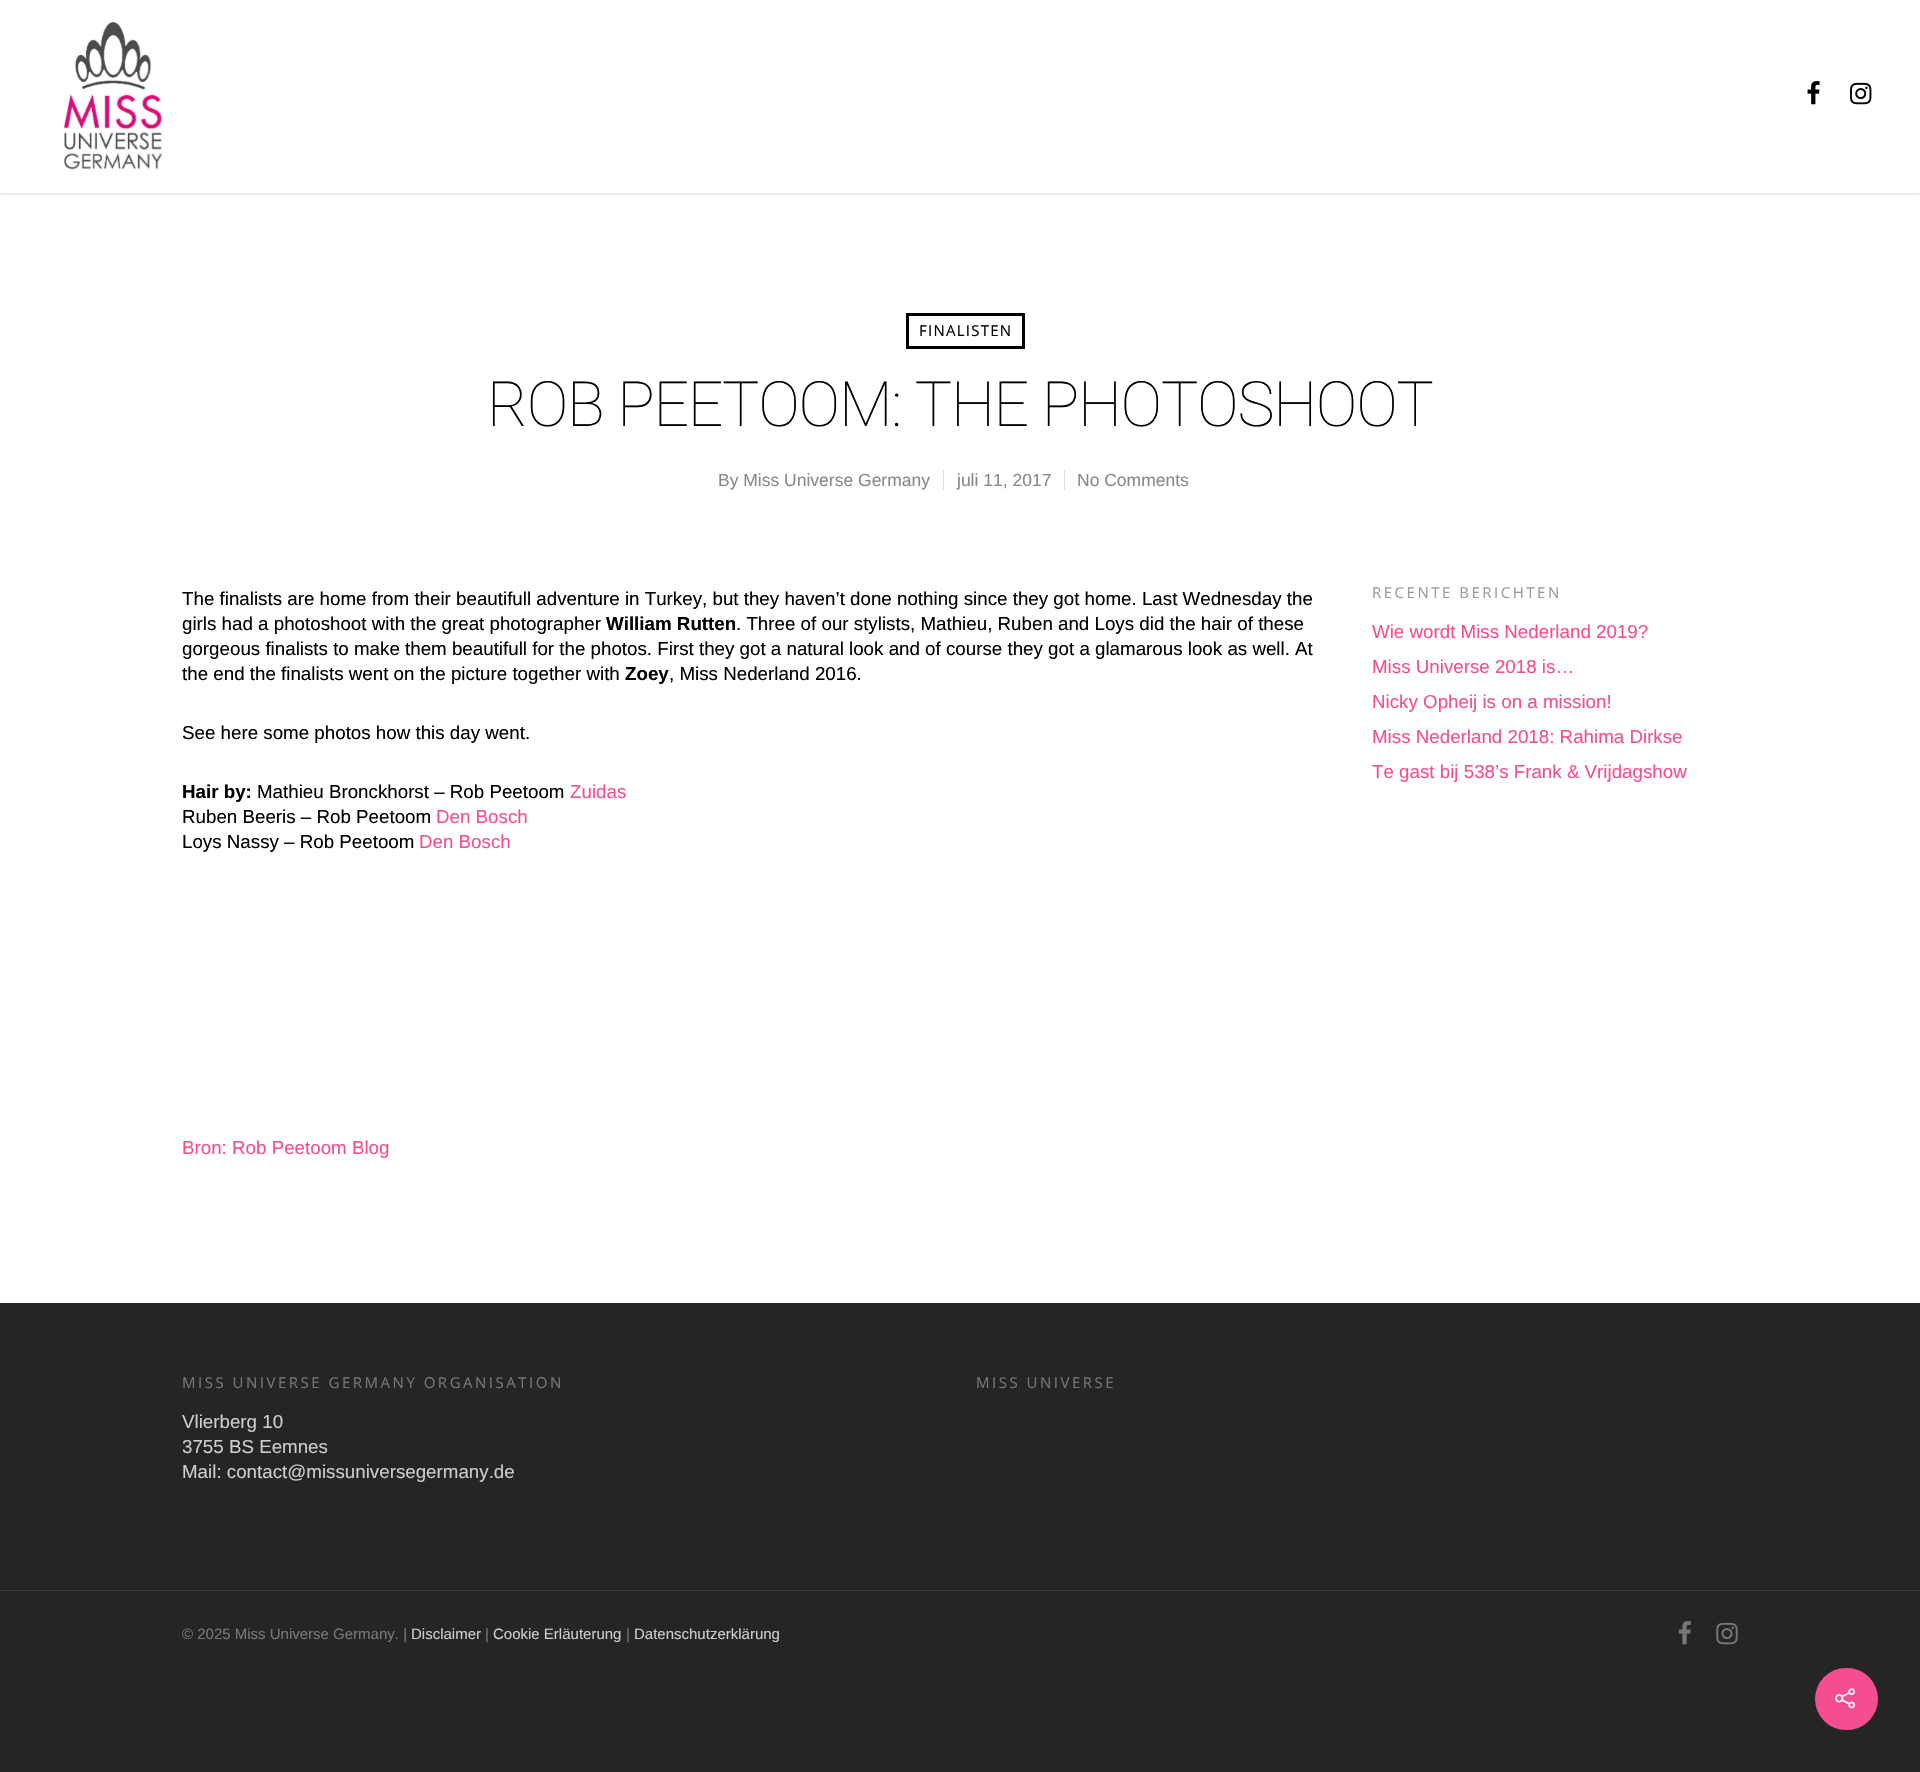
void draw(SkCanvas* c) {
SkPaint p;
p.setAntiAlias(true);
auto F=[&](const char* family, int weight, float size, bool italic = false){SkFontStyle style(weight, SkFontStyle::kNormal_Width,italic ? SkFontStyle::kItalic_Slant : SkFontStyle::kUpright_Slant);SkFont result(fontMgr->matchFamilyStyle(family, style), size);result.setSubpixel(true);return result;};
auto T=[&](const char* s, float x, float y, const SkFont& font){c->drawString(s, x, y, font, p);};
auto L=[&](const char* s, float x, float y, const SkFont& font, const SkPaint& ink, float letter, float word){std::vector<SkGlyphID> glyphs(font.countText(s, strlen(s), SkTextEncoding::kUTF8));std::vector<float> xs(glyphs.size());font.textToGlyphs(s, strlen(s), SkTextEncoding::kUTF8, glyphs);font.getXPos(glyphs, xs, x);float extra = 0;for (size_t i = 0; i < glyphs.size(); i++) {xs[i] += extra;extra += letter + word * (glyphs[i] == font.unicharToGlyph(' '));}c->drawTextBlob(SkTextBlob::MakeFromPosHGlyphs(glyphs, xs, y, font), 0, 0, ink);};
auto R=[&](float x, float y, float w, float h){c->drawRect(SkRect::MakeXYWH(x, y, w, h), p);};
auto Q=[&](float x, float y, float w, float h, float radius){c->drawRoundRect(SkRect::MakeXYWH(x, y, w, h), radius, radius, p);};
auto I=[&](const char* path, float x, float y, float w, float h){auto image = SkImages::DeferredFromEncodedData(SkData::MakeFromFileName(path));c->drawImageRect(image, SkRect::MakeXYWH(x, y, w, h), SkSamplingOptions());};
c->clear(0xff252525);
p.setColor(0xffffffff);
R(0,193,1920,1110);
p.setColor(0x38000000);
p.setMaskFilter(SkMaskFilter::MakeBlur(kNormal_SkBlurStyle, 2));
c->drawRect(SkRect::MakeXYWH(0,0,1920,193),p);
p.setMaskFilter(nullptr);
p.setColor(0xffffffff);
R(0,0,1920,193);
I("1.png",63,21,100,149);
I("2.png",1807,81,13,24);
I("3.png",1850,82,22,23);
p.setStroke(true);
p.setStrokeWidth(3);
p.setColor(0xff000000);
c->drawRect(SkRect::MakeXYWH(907.5,314.5,116,33),p);
auto f1 = F("Open Sans",400,15);
p.setStroke(false);
L("FINALISTEN",919,336,f1,p,1.25,0);
auto f2 = F("Roboto",100,62.5);
L("ROB PEETOOM: THE PHOTOSHOOT",487,426,f2,p,-1.25,0);
auto f3 = F("Liberation Sans",400,17.5);
p.setColor(0xff888888);
T("By Miss Universe Germany",718,486,f3);
p.setColor(0xffdddddd);
R(943,470,1,20);
p.setColor(0xff888888);
T("juli 11, 2017",957,486,f3);
p.setColor(0xffdddddd);
R(1064,470,1,20);
p.setColor(0xff888888);
T("No Comments",1077,486,f3);
auto f4 = F("Liberation Sans",400,18.75);
p.setColor(0xff000000);
T("The finalists are home from their beautifull adventure in Turkey, but they haven’t done nothing since they got home. Last Wednesday the",182,605,f4);
T("girls had a photoshoot with the great photographer",182,630,f4);
auto f5 = F("Liberation Sans",700,18.75);
T("William Rutten",606,630,f5);
T(". Three of our stylists, Mathieu, Ruben and Loys did the hair of these",736,630,f4);
T("gorgeous finalists to make them beautifull for the photos. First they got a natural look and of course they got a glamarous look as well. At",182,655,f4);
T("the end the finalists went on the picture together with",182,680,f4);
T("Zoey",625,680,f5);
T(", Miss Nederland 2016.",669,680,f4);
T("See here some photos how this day went.",182,739,f4);
T("Hair by:",182,798,f5);
T("Mathieu Bronckhorst – Rob Peetoom",257,798,f4);
p.setColor(0xfff44e90);
T("Zuidas",570,798,f4);
p.setColor(0xff000000);
T("Ruben Beeris – Rob Peetoom",182,823,f4);
p.setColor(0xfff44e90);
T("Den Bosch",436,823,f4);
p.setColor(0xff000000);
T("Loys Nassy – Rob Peetoom",182,848,f4);
p.setColor(0xfff44e90);
T("Den Bosch",419,848,f4);
T("Bron: Rob Peetoom Blog",182,1154,f4);
p.setColor(0xff999999);
L("RECENTE BERICHTEN",1372,598,f1,p,2.5,0);
p.setColor(0xfff44e90);
T("Wie wordt Miss Nederland 2019?",1372,638,f4);
T("Miss Universe 2018 is…",1372,673,f4);
T("Nicky Opheij is on a mission!",1372,708,f4);
T("Miss Nederland 2018: Rahima Dirkse",1372,743,f4);
T("Te gast bij 538’s Frank & Vrijdagshow",1372,778,f4);
p.setColor(0xff777777);
L("MISS UNIVERSE GERMANY ORGANISATION",182,1388,f1,p,2.5,0);
p.setColor(0xffcccccc);
T("Vlierberg 10",182,1428,f4);
T("3755 BS Eemnes",182,1453,f4);
T("Mail: contact@missuniversegermany.de",182,1478,f4);
p.setColor(0xff777777);
L("MISS UNIVERSE",976,1388,f1,p,2.5,0);
p.setColor(0xff3b3b3b);
R(0,1590,1920,1);
auto f6 = F("Liberation Sans",400,15);
p.setColor(0xff777777);
T("© 2025 Miss Universe Germany. |",182,1639,f6);
p.setColor(0xffcccccc);
T("Disclaimer",411,1639,f6);
p.setColor(0xff777777);
T("|",485,1639,f6);
p.setColor(0xffcccccc);
T("Cookie Erläuterung",493,1639,f6);
p.setColor(0xff777777);
T("|",626,1639,f6);
p.setColor(0xffcccccc);
T("Datenschutzerklärung",634,1639,f6);
I("4.png",1678,1621,13,24);
I("5.png",1716,1622,22,23);
p.setColor(0xfff44e90);
Q(1815,1668,63,62,31);
I("6.png",1835,1688,20,21);
}
